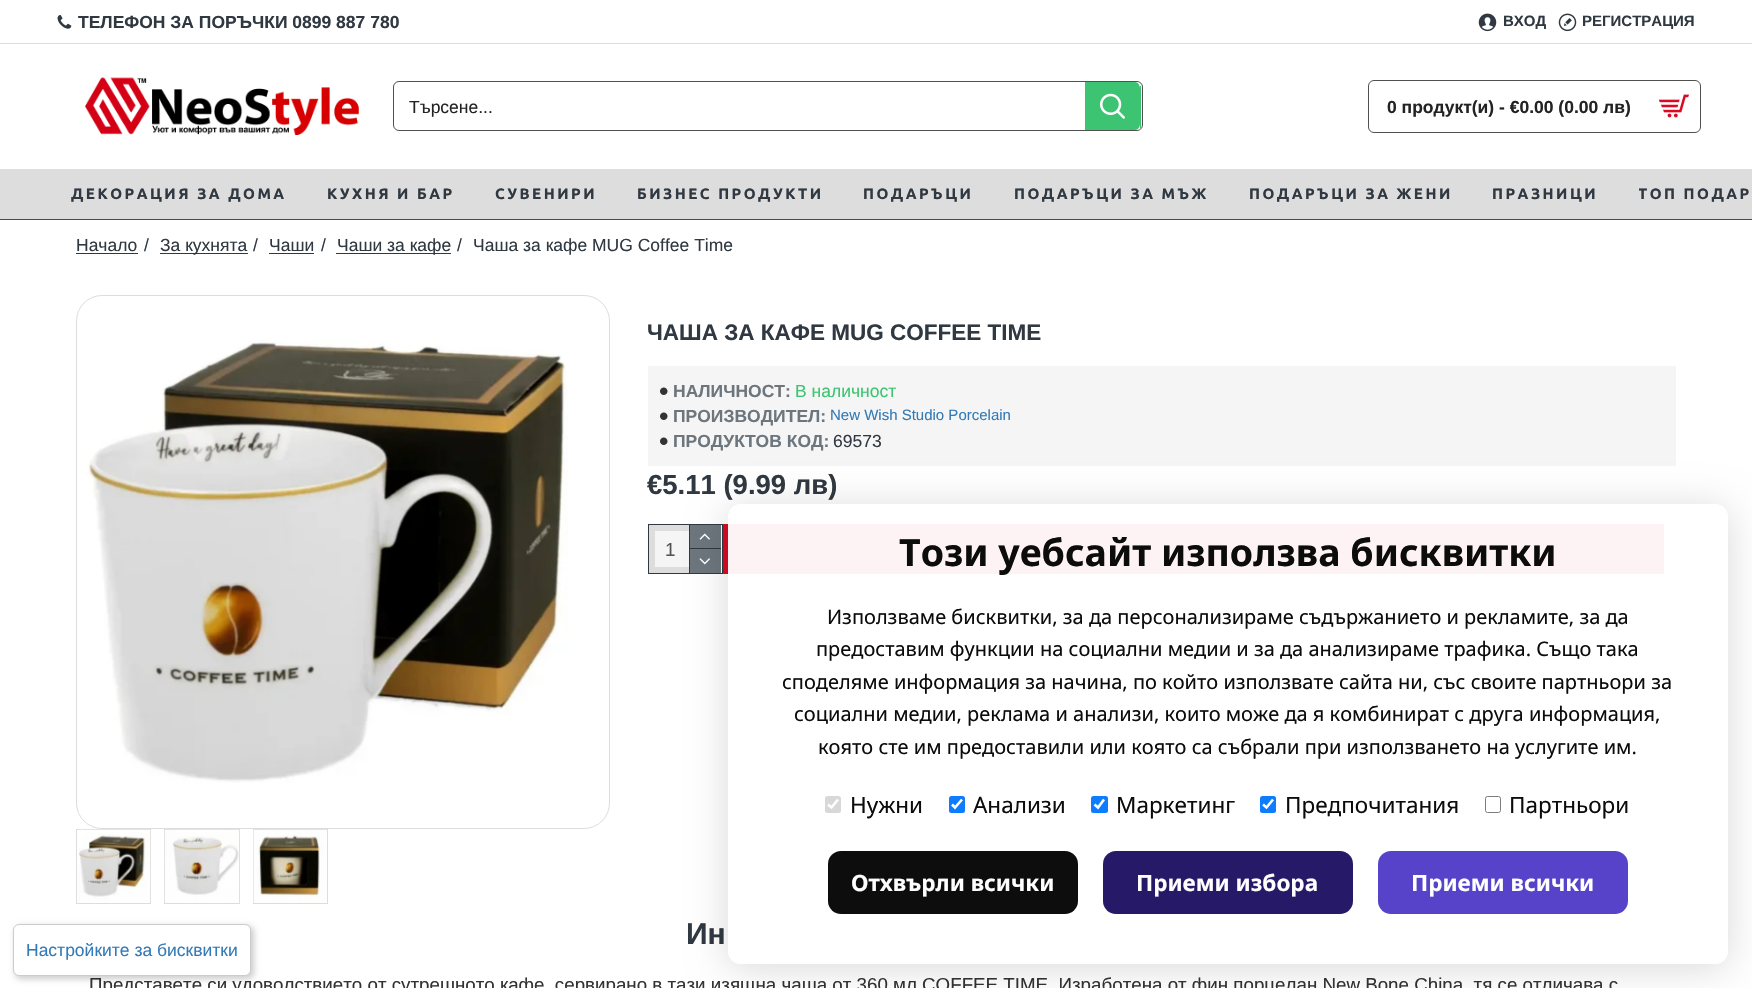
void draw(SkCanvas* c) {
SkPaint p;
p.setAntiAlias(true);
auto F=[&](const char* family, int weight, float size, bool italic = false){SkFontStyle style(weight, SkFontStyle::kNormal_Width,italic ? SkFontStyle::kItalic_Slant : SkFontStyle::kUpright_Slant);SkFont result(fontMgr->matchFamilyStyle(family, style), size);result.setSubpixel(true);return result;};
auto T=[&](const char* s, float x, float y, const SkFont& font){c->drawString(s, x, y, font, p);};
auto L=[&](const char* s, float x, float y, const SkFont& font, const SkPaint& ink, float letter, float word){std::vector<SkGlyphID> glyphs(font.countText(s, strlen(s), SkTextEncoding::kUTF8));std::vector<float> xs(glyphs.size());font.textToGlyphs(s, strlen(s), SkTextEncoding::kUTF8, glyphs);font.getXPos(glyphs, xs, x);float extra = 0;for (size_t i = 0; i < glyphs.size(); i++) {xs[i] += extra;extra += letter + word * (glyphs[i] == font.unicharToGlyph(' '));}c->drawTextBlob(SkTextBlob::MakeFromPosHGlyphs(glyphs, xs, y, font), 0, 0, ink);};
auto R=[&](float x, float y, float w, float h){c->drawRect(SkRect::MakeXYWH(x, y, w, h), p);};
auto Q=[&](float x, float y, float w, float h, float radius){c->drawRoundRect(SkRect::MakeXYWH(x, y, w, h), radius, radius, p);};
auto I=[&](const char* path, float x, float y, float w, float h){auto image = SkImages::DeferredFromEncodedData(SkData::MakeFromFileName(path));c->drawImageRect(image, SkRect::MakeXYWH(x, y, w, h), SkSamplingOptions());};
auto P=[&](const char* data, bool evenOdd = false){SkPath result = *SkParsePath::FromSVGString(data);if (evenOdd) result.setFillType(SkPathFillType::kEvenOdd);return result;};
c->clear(0xffffffff);
p.setColor(0xffda0a22);
R(0,219,1752,1);
I("1.png",57,15,15,14);
auto f1 = F("Liberation Sans",700,17.5);
p.setColor(0xff303841);
T("ТЕЛЕФОН ЗА ПОРЪЧКИ 0899 887 780",78,28,f1);
I("2.png",1478,13,19,19);
auto f2 = F("Liberation Sans",700,15);
T("ВХОД",1503,26,f2);
I("3.png",1558,13,19,19);
T("РЕГИСТРАЦИЯ",1582,26,f2);
I("4.png",85,77,274,58);
p.setStroke(true);
p.setStrokeWidth(1);
p.setColor(0xff505050);
c->drawRoundRect(SkRect::MakeXYWH(393.5,81.5,749,49),5.5,5.5,p);
auto f3 = F("Liberation Sans",400,17.5);
p.setStroke(false);
p.setColor(0xff232323);
T("Търсене...",409,113,f3);
p.setColor(0xff3cc472);
c->drawPath(P("M1085 82h50c3 0 5 3 5 7v35c0 3-2 6-5 6h-50z"),p);
R(1140,86,1,42);
I("5.png",1100,93,25,26);
p.setStroke(true);
p.setColor(0xff505050);
c->drawRoundRect(SkRect::MakeXYWH(1368.5,80.5,332,52),5.5,5.5,p);
p.setStroke(false);
p.setColor(0xff232323);
T("0 продукт(и) - €0.00 (0.00 лв)",1387,113,f1);
I("6.png",1658,94,31,24);
p.setColor(0xffdddddd);
R(0,169,1752,50);
auto f4 = F("Ubuntu",700,15);
p.setColor(0xff303841);
L("ДЕКОРАЦИЯ ЗА ДОМА",71,199,f4,p,2.5,0);
L("КУХНЯ И БАР",327,199,f4,p,2.5,0);
L("СУВЕНИРИ",495,199,f4,p,2.5,0);
L("БИЗНЕС ПРОДУКТИ",637,199,f4,p,2.5,0);
L("ПОДАРЪЦИ",863,199,f4,p,2.5,0);
L("ПОДАРЪЦИ ЗА МЪЖ",1014,199,f4,p,2.5,0);
L("ПОДАРЪЦИ ЗА ЖЕНИ",1249,199,f4,p,2.5,0);
L("ПРАЗНИЦИ",1492,199,f4,p,2.5,0);
c->save();
c->clipRect(SkRect::MakeXYWH(1639,183,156,21));
L("ТОП ПОДАР",1638,199,f4,p,2.5,0);
c->restore();
p.setColor(0xffdddddd);
R(0,43,1752,1);
p.setColor(0xff303841);
T("Начало",76,251,f3);
R(76,253,62,1);
T("/",144,251,f3);
R(160,253,88,1);
T("За кухнята",160,251,f3);
T("/",253,251,f3);
T("Чаши",269,251,f3);
R(269,253,45,1);
T("/",321,251,f3);
R(336,253,115,1);
T("Чаши за кафе",337,251,f3);
T("/",457,251,f3);
T("Чаша за кафе MUG Coffee Time",473,251,f3);
p.setStroke(true);
p.setColor(0xffdddddd);
c->drawRoundRect(SkRect::MakeXYWH(76.5,295.5,533,533),25.5,25.5,p);
I("7.png",85,338,483,445);
c->drawRect(SkRect::MakeXYWH(76.5,829.5,74,74),p);
I("8.png",78,829,73,73);
c->drawRect(SkRect::MakeXYWH(164.5,829.5,75,74),p);
I("9.png",164,829,76,73);
c->drawRect(SkRect::MakeXYWH(253.5,829.5,74,74),p);
I("10.png",253,829,73,74);
auto f5 = F("Liberation Sans",700,22.5);
p.setStroke(false);
p.setColor(0xff303841);
T("ЧАША ЗА КАФЕ MUG COFFEE TIME",647,340,f5);
p.setColor(0xfff5f5f5);
R(648,366,1028,100);
I("11.png",660,387,8,8);
p.setColor(0xff6d767d);
T("НАЛИЧНОСТ:",673,397,f1);
p.setColor(0xff3cc472);
T("В наличност",795,397,f3);
I("11.png",660,412,8,8);
p.setColor(0xff6d767d);
T("ПРОИЗВОДИТЕЛ:",673,422,f1);
auto f6 = F("Liberation Sans",400,15);
p.setColor(0xff337ab7);
T("New Wish Studio Porcelain",830,420,f6);
I("11.png",660,437,8,8);
p.setColor(0xff6d767d);
T("ПРОДУКТОВ КОД:",673,447,f1);
p.setColor(0xff303841);
T("69573",833,447,f3);
auto f7 = F("Liberation Sans",700,27.5);
T("€5.11 (9.99 лв)",647,494,f7);
p.setStroke(true);
c->drawRect(SkRect::MakeXYWH(648.5,524.5,74,49),p);
p.setStroke(false);
p.setColor(0xfff5f5f5);
R(655,531,34,36);
p.setStroke(true);
p.setStrokeWidth(6);
p.setColor(0xffdddddd);
c->drawRect(SkRect::MakeXYWH(652,528,66,42),p);
auto f8 = F("Liberation Sans",400,18.75);
p.setStroke(false);
p.setColor(0xff555555);
T("1",665,556,f8);
p.setColor(0xff303841);
R(689,525,1,48);
p.setColor(0xff6d767d);
R(690,525,31,23);
p.setColor(0xff303841);
R(690,548,31,1);
I("12.png",699,533,11,7);
p.setColor(0xff6d767d);
R(690,549,31,24);
I("13.png",699,558,11,7);
p.setColor(0xffda0a22);
R(723,524,941,50);
auto f9 = F("Liberation Sans",700,30);
p.setColor(0xff303841);
T("Ин",686,944,f9);
p.setColor(0xff333333);
T("Представете си удоволствието от сутрешното кафе, сервирано в тази изящна чаша от 360 мл COFFEE TIME. Изработена от фин порцелан New Bone China, тя се отличава с",89,991,f8);
c->save();
c->clipPath(P("M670 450h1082v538h-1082zm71 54h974c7 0 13 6 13 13v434c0 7-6 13-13 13h-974c-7 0-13-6-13-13v-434c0-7 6-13 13-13z",true),true);
p.setColor(0x26000000);
p.setMaskFilter(SkMaskFilter::MakeBlur(kNormal_SkBlurStyle, 19));
c->drawRoundRect(SkRect::MakeXYWH(728,508,1000,460),13,13,p);
p.setMaskFilter(nullptr);
c->restore();
p.setColor(0xf2ffffff);
Q(728,504,1000,460,13);
auto f10 = F("Noto Sans",700,37.5);
p.setColor(0xff0d0c0c);
T("Този уебсайт използва бисквитки",899,566,f10);
auto f11 = F("Noto Sans",400,20);
T("Използваме бисквитки, за да персонализираме съдържанието и рекламите, за да",827,624,f11);
T("предоставим функции на социални медии и за да анализираме трафика. Също така",816,656,f11);
T("споделяме информация за начина, по който използвате сайта ни, със своите партньори за",782,689,f11);
T("социални медии, реклама и анализи, които може да я комбинират с друга информация,",794,721,f11);
T("която сте им предоставили или която са събрали при използването на услугите им.",818,754,f11);
p.setColor(0xffd8d8d8);
Q(825,796,16,17,2.5);
p.setStroke(true);
p.setStrokeWidth(2.6);
p.setColor(0xffffffff);
c->drawPath(P("M828 804.5l3.5 3l6.5-8"),p);
auto f12 = F("Noto Sans",400,22.5);
p.setStroke(false);
p.setColor(0xff0d0c0c);
T("Нужни",850,813,f12);
p.setColor(0xff0d7cff);
Q(949,796,16,17,2.5);
p.setStroke(true);
p.setColor(0xffffffff);
c->drawPath(P("M952 804.5l3 3l7-8"),p);
p.setStroke(false);
p.setColor(0xff0d0c0c);
T("Анализи",973,813,f12);
p.setColor(0xff0d7cff);
Q(1091,796,17,17,2.5);
p.setStroke(true);
p.setColor(0xffffffff);
c->drawPath(P("M1094.5 804.5l3.5 3l6-8"),p);
p.setStroke(false);
p.setColor(0xff0d0c0c);
T("Маркетинг",1116,813,f12);
p.setColor(0xff0d7cff);
Q(1260,796,16,17,2.5);
p.setStroke(true);
p.setColor(0xffffffff);
c->drawPath(P("M1263 804.5l3.5 3l6.5-8"),p);
p.setStroke(false);
p.setColor(0xff0d0c0c);
T("Предпочитания",1285,813,f12);
p.setStroke(true);
p.setStrokeWidth(1);
p.setColor(0xff7d7d7d);
c->drawRoundRect(SkRect::MakeXYWH(1485.5,796.5,15,16),2,2,p);
p.setStroke(false);
p.setColor(0xff0d0c0c);
T("Партньори",1509,813,f12);
p.setColor(0xff0d0d0d);
Q(828,851,250,63,13);
auto f13 = F("Noto Sans",700,22.5);
p.setColor(0xffffffff);
T("Отхвърли всички",851,891,f13);
p.setColor(0xff251968);
Q(1103,851,250,63,13);
p.setColor(0xffffffff);
T("Приеми избора",1136,891,f13);
p.setColor(0xff5742ca);
Q(1378,851,250,63,13);
p.setColor(0xffffffff);
T("Приеми всички",1411,891,f13);
p.setColor(0x33000000);
p.setMaskFilter(SkMaskFilter::MakeBlur(kNormal_SkBlurStyle, 3));
c->drawRoundRect(SkRect::MakeXYWH(15,926,239,53),6,6,p);
p.setMaskFilter(nullptr);
p.setColor(0xffffffff);
c->drawRoundRect(SkRect::MakeXYWH(13.5,924.5,237,51),5.5,5.5,p);
p.setStroke(true);
p.setColor(0xffcccccc);
c->drawRoundRect(SkRect::MakeXYWH(13.5,924.5,237,51),5.5,5.5,p);
p.setStroke(false);
p.setColor(0xff337ab7);
T("Настройките за бисквитки",26,956,f3);
}
